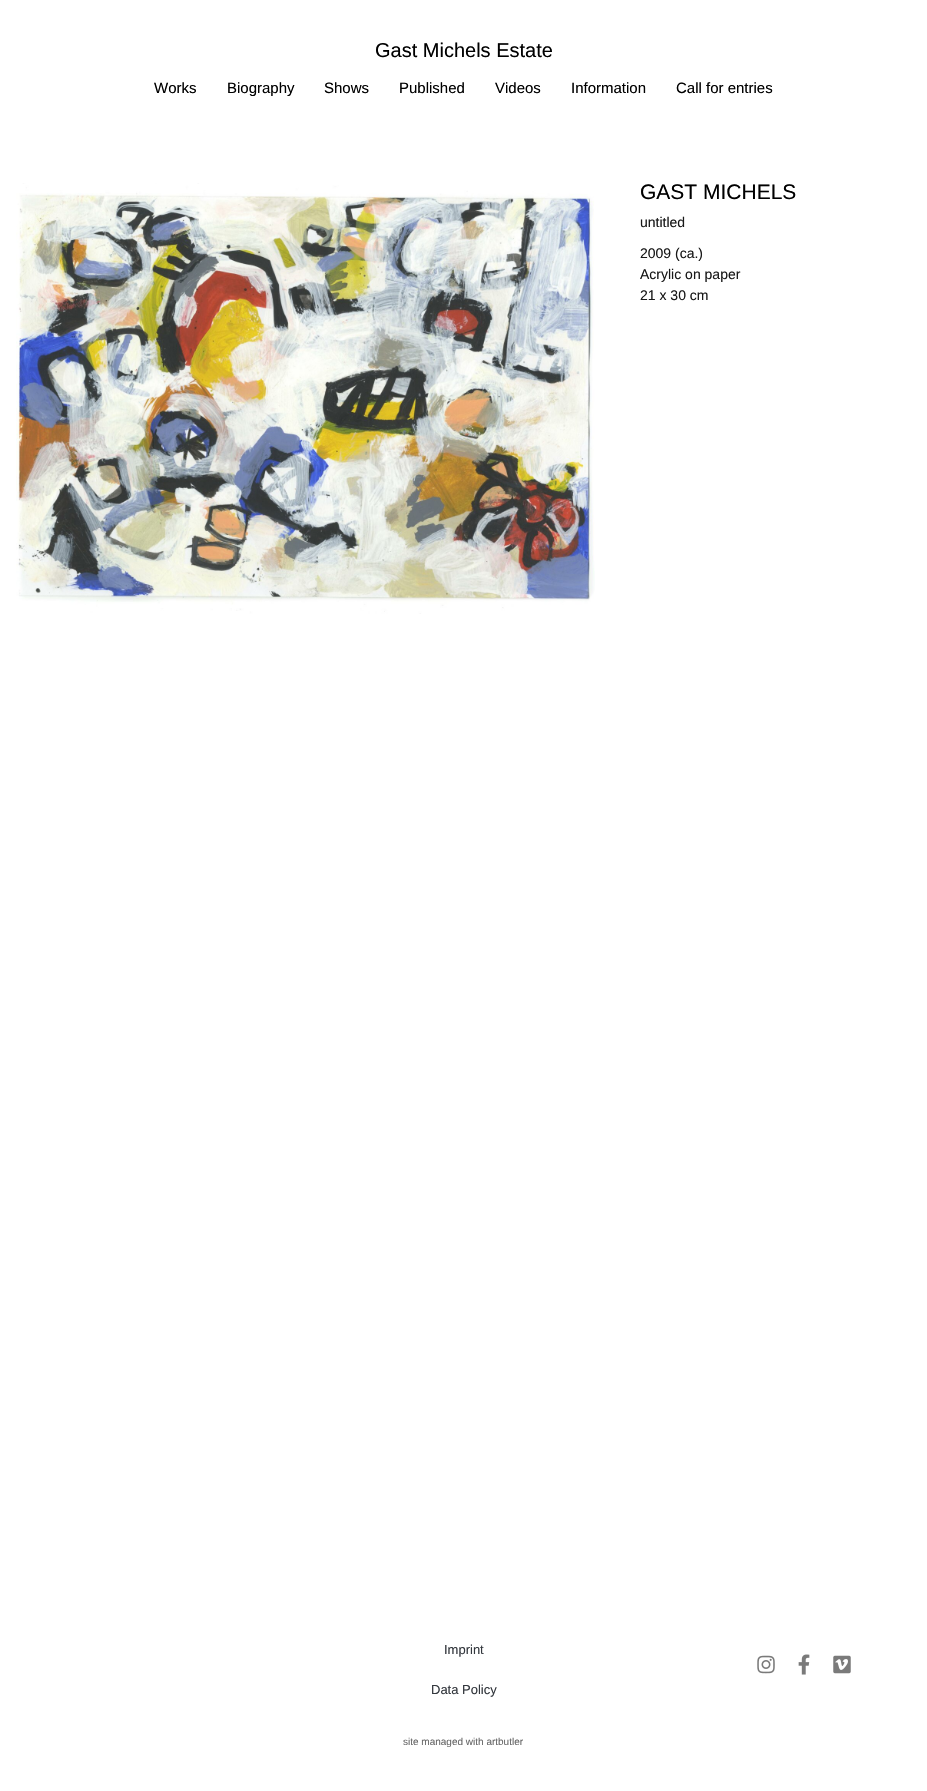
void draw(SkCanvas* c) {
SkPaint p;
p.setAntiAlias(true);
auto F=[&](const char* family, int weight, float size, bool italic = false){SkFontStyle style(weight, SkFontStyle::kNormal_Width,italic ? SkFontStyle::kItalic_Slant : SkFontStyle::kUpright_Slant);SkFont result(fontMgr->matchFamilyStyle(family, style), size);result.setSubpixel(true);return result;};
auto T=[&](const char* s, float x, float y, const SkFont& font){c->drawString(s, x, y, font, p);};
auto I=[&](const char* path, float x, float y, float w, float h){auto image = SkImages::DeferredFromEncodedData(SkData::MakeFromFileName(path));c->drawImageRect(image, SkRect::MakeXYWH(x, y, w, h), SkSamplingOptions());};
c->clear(0xffffffff);
auto f1 = F("Liberation Sans",400,20);
p.setColor(0xff000000);
T("Gast Michels Estate",375,57,f1);
auto f2 = F("Liberation Sans",400,15);
T("Works",154,93,f2);
T("Biography",227,93,f2);
T("Shows",324,93,f2);
T("Published",399,93,f2);
T("Videos",495,93,f2);
T("Information",571,93,f2);
T("Call for entries",676,93,f2);
I("1.png",16,183,579,431);
auto f3 = F("Liberation Sans",400,21);
T("GAST MICHELS",640,199,f3);
auto f4 = F("Liberation Sans",400,14);
p.setColor(0xff181818);
T("untitled",640,227,f4);
T("2009 (ca.)",640,258,f4);
T("Acrylic on paper",640,279,f4);
T("21 x 30 cm",640,300,f4);
auto f5 = F("Liberation Sans",400,13);
p.setColor(0xff33373d);
T("Imprint",444,1654,f5);
T("Data Policy",431,1694,f5);
I("2.png",757,1655,18,19);
I("3.png",798,1654,12,21);
I("4.png",833,1655,18,19);
auto f6 = F("Liberation Sans",400,10);
p.setColor(0xff666666);
T("site managed with artbutler",403,1745,f6);
}
